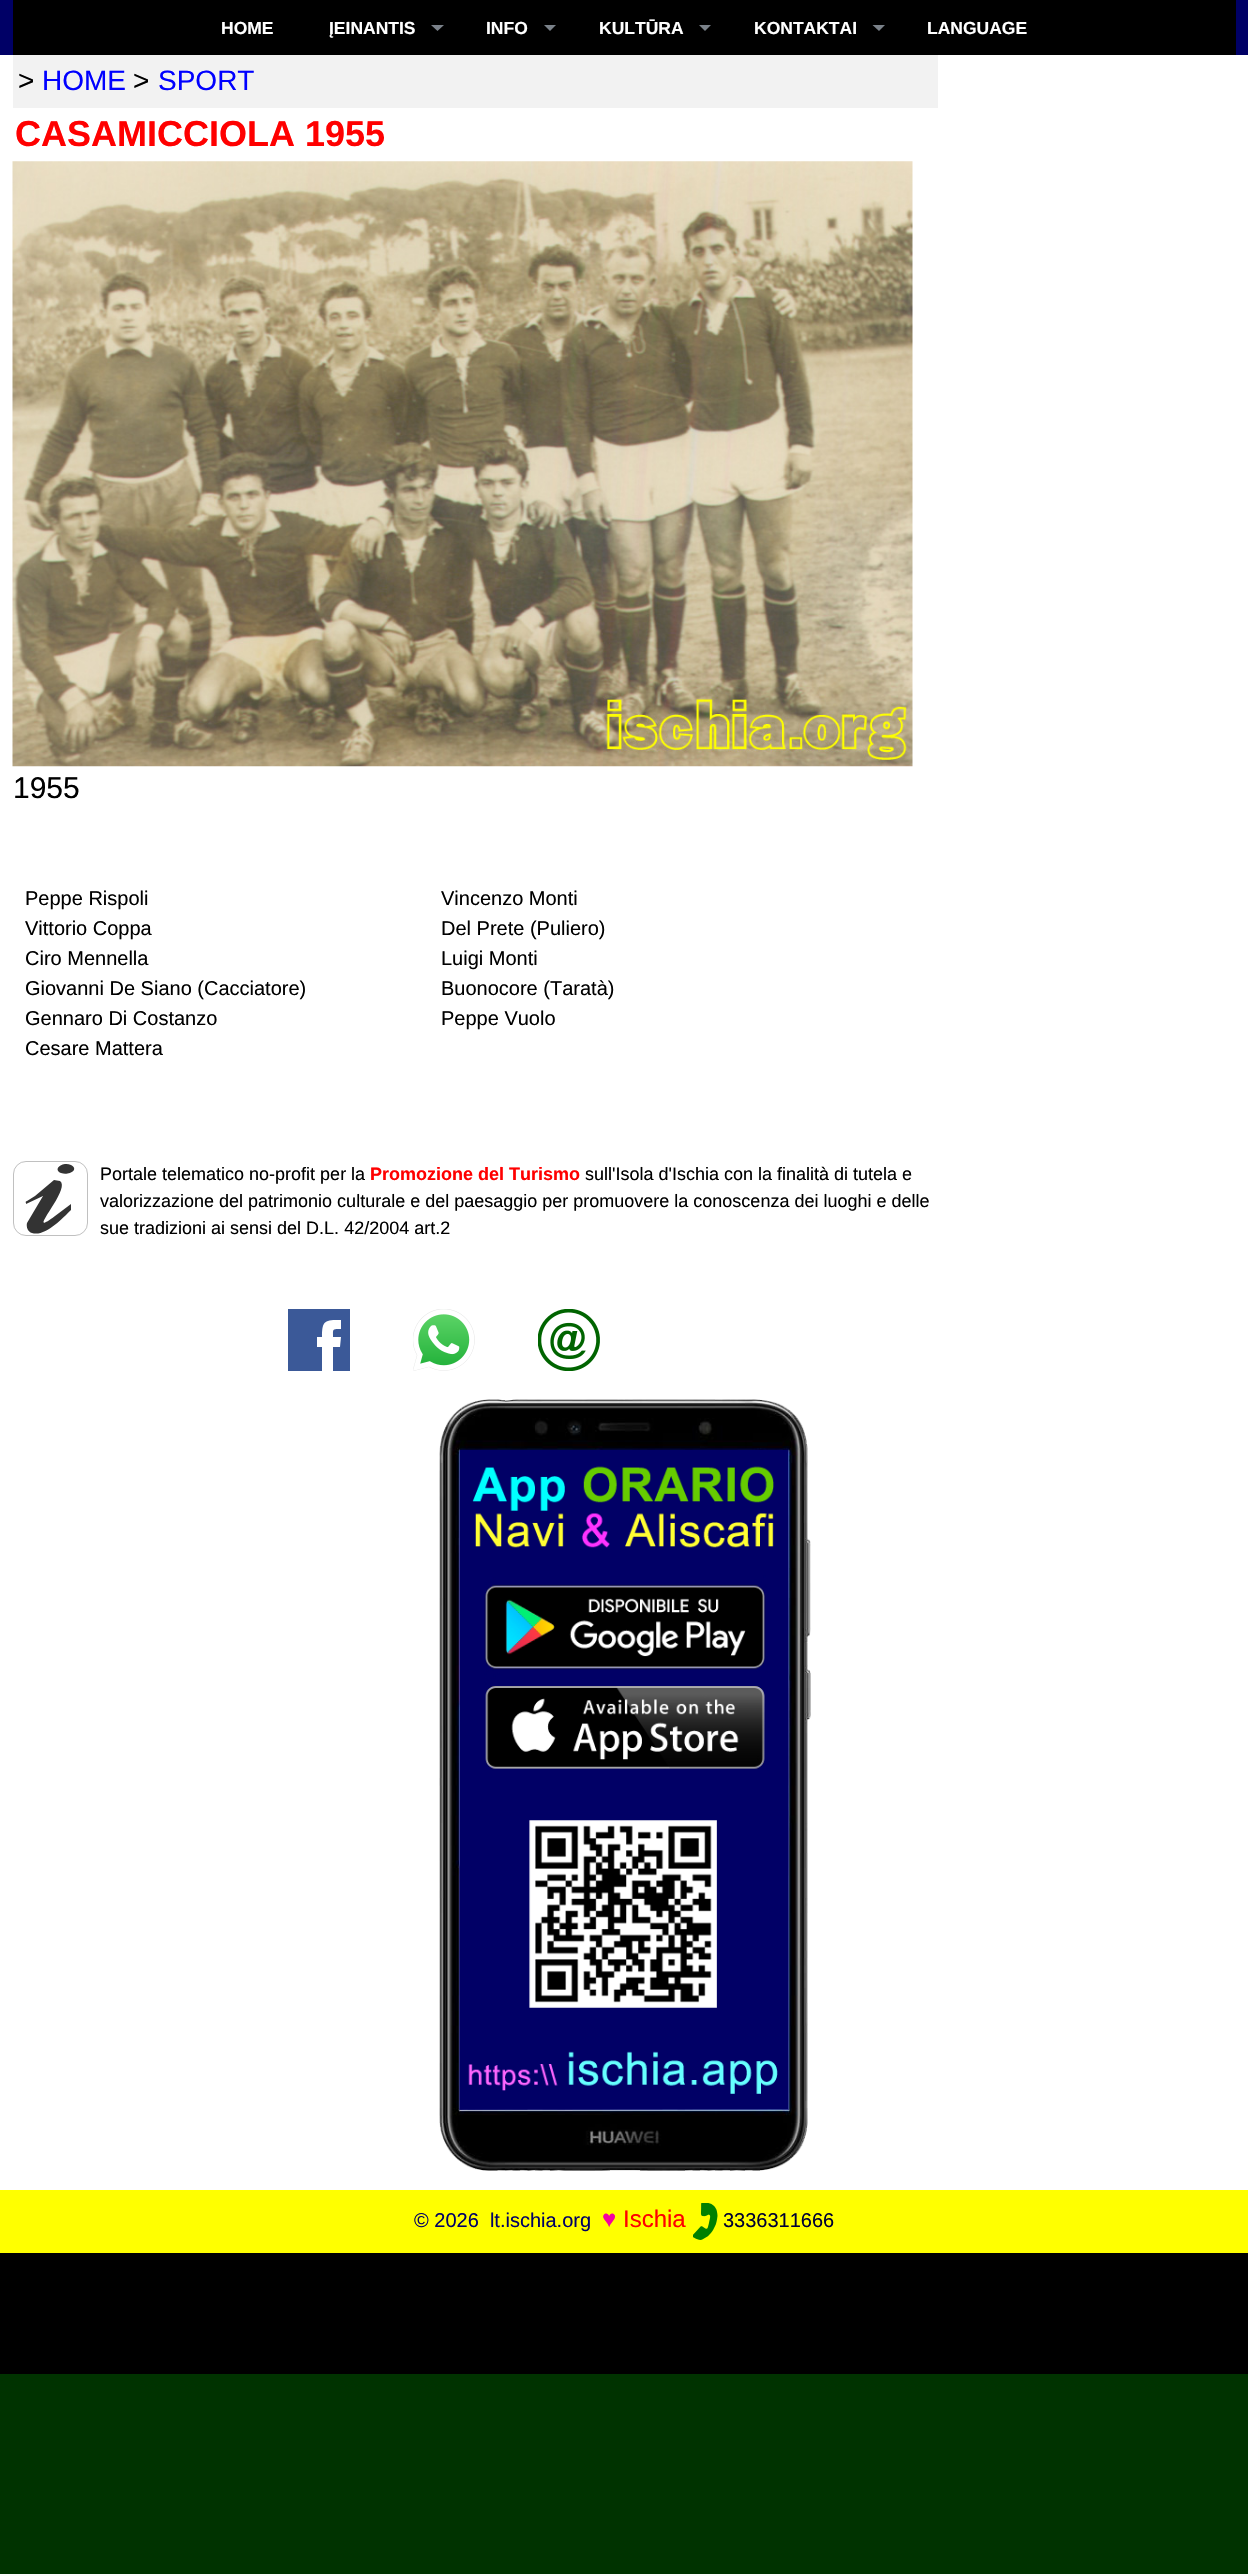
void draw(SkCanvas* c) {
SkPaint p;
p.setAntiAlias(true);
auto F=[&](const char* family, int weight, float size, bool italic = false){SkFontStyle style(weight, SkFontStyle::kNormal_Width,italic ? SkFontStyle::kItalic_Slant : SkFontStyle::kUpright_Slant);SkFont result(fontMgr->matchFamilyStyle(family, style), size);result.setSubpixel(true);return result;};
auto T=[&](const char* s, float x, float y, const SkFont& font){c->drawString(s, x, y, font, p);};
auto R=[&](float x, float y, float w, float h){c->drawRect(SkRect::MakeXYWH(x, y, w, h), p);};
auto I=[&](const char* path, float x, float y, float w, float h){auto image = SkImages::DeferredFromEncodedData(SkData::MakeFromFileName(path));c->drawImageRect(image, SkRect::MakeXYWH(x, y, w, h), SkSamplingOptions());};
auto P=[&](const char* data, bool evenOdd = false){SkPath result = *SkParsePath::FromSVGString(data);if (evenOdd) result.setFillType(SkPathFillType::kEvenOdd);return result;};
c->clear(0xff003300);
p.setColor(0xff000066);
R(0,0,1248,55);
p.setColor(0xff000000);
R(13,0,1223,55);
auto f1 = F("Liberation Sans",700,17.5);
p.setColor(0xffffffff);
T("HOME",221,34,f1);
T("ĮEINANTIS",329,34,f1);
p.setColor(0xff7a8189);
c->drawPath(P("M431 25h13l-6.5 6z"),p);
p.setColor(0xffffffff);
T("INFO",486,34,f1);
p.setColor(0xff7a8189);
c->drawPath(P("M544 25h12l-6 6z"),p);
p.setColor(0xffffffff);
T("KULTŪRA",599,34,f1);
p.setColor(0xff7a8189);
c->drawPath(P("M699 25h12l-6 6z"),p);
p.setColor(0xffffffff);
T("KONTAKTAI",754,34,f1);
p.setColor(0xff7a8189);
c->drawPath(P("M872.5 25h12.5l-6 6z"),p);
p.setColor(0xffffffff);
T("LANGUAGE",927,34,f1);
R(0,55,1248,2135);
p.setColor(0xfff2f2f2);
R(13,55,925,53);
auto f2 = F("Liberation Sans",400,28);
p.setColor(0xff000000);
T(">",18,90,f2);
p.setColor(0xff0000ff);
T("HOME",42,90,f2);
p.setColor(0xff000000);
T(">",133,90,f2);
p.setColor(0xff0000ff);
T("SPORT",158,90,f2);
auto f3 = F("Liberation Sans",700,36);
p.setColor(0xffff0000);
T("CASAMICCIOLA 1955",15,146,f3);
I("1.png",12,161,901,606);
auto f4 = F("Liberation Sans",400,30);
p.setColor(0xff000000);
T("1955",13,798,f4);
auto f5 = F("Liberation Sans",400,20);
T("Peppe Rispoli",25,905,f5);
T("Vittorio Coppa",25,935,f5);
T("Ciro Mennella",25,965,f5);
T("Giovanni De Siano (Cacciatore)",25,995,f5);
T("Gennaro Di Costanzo",25,1025,f5);
T("Cesare Mattera",25,1055,f5);
T("Vincenzo Monti",441,905,f5);
T("Del Prete (Puliero)",441,935,f5);
T("Luigi Monti",441,965,f5);
T("Buonocore (Taratà)",441,995,f5);
T("Peppe Vuolo",441,1025,f5);
p.setStroke(true);
p.setStrokeWidth(1);
p.setColor(0xffc0c0c0);
c->drawRoundRect(SkRect::MakeXYWH(13.5,1161.5,74,74),12.5,12.5,p);
p.setStroke(false);
p.setColor(0xff333333);
c->drawPath(P("M32 1233c-4-1-6-6-5-10l16-27l-17 8v-1c-1-1 0-2 1-2l8-5l19-16l6 1c12 8-38 60-5 35l16-12v6c-9 9-26 27-39 23zm29-60c-9-4 2-12 10-8c9 5-3 11-10 8z"),p);
auto f6 = F("Liberation Sans",400,18);
p.setColor(0xff000000);
T("Portale telematico no-profit per la",100,1180,f6);
auto f7 = F("Liberation Sans",700,18);
p.setColor(0xffff0000);
T("Promozione del Turismo",370,1180,f7);
p.setColor(0xff000000);
T("sull'Isola d'Ischia con la finalità di tutela e",585,1180,f6);
T("valorizzazione del patrimonio culturale e del paesaggio per promuovere la conoscenza dei luoghi e delle",100,1207,f6);
T("sue tradizioni ai sensi del D.L. 42/2004 art.2",100,1234,f6);
p.setColor(0xff3b5998);
R(288,1309,62,62);
c->save();
c->clipRect(SkRect::MakeXYWH(288,1309,62,62));
p.setColor(0xffffffff);
c->drawPath(P("M341 1337l-1 10h-7v26h-11v-26h-5v-10h5c0-17 3-17 19-17v9c-9 0-8 0-8 8z"),p);
c->restore();
I("2.png",413,1309,62,62);
I("3.png",538,1309,62,62);
I("4.png",439,1399,372,772);
p.setColor(0xff000000);
R(0,2253,1248,121);
p.setColor(0xffffff00);
R(0,2190,1248,63);
p.setColor(0xff000066);
T("© 2026  lt.ischia.org",414,2227,f5);
auto f8 = F("Liberation Sans",400,24);
p.setColor(0xfff400a1);
T("♥",602,2227,f8);
p.setColor(0xffff0000);
T("Ischia",623,2227,f8);
I("5.png",693,2203,25,37);
p.setColor(0xff000033);
T("3336311666",723,2227,f5);
}
